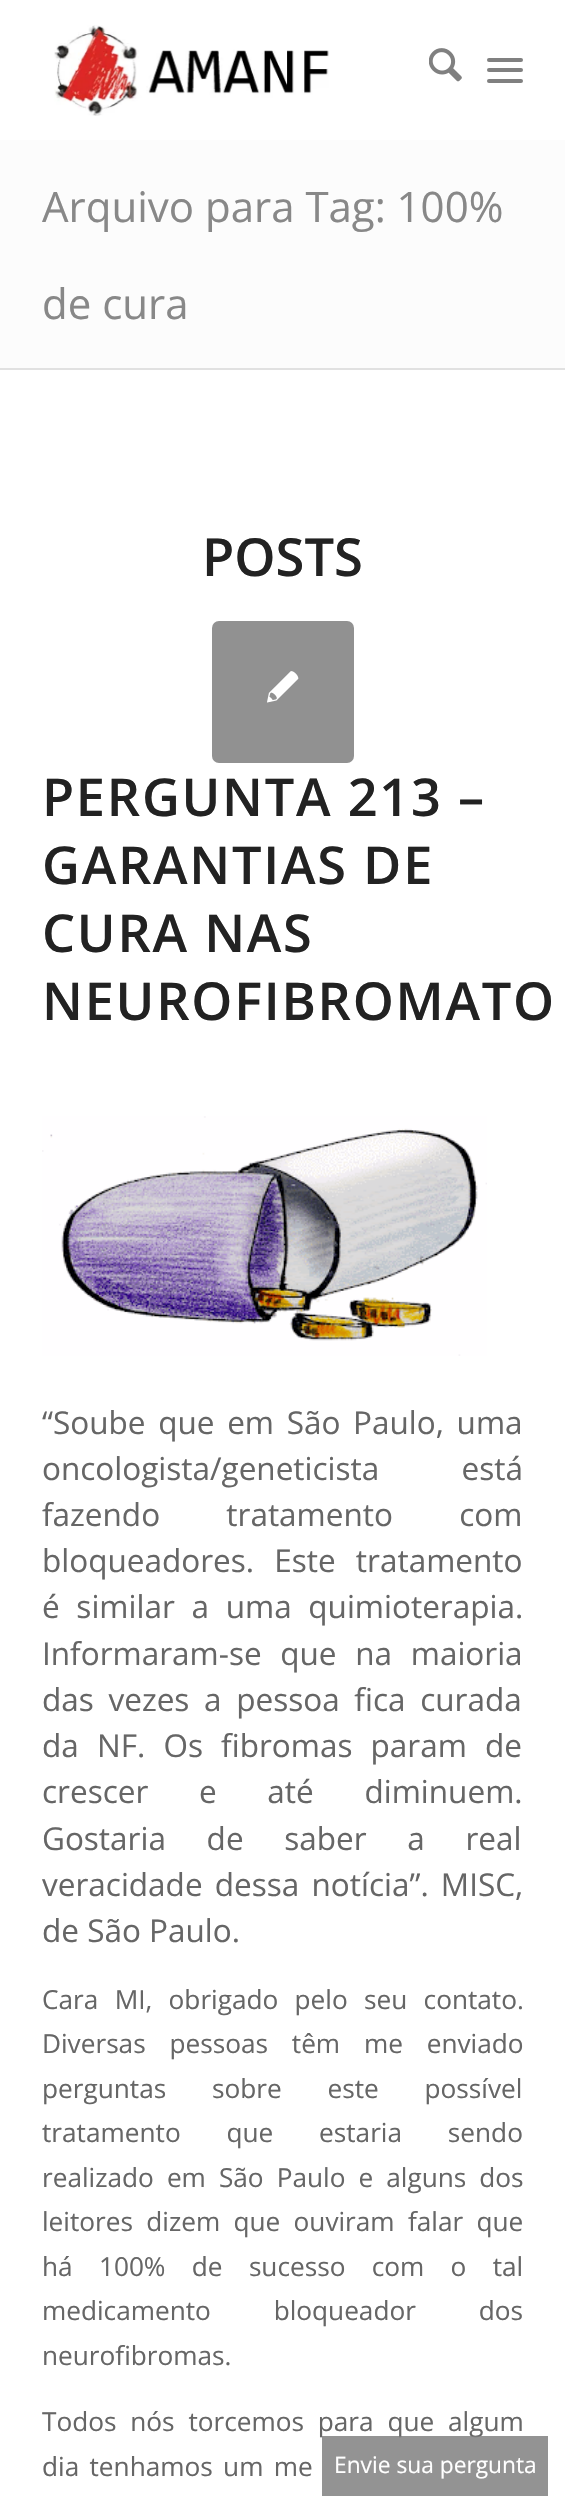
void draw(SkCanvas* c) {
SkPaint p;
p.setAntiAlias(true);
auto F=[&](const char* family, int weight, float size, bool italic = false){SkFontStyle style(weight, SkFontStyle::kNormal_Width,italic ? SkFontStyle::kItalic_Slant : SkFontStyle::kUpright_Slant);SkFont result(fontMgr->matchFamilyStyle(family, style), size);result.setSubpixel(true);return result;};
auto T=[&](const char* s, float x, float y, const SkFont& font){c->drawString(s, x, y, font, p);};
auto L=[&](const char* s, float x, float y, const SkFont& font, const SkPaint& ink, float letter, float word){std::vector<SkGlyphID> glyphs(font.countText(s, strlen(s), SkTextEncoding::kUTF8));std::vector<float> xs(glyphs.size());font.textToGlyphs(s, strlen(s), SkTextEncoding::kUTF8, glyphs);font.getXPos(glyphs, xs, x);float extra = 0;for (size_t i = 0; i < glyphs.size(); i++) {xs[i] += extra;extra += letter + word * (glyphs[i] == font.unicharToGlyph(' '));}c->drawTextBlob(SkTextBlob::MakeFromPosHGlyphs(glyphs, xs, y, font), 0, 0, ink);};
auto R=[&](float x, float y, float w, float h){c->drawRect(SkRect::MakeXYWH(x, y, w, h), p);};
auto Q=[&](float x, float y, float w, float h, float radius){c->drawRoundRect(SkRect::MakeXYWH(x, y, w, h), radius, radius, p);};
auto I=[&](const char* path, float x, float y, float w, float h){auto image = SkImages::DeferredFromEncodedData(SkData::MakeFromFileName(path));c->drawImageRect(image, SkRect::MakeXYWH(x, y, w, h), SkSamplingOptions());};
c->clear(0xffffffff);
I("1.png",54,25,275,91);
I("2.png",429,48,33,34);
p.setColor(0xff808080);
Q(487,68,36,4,2);
Q(487,58,36,4,2);
Q(487,79,36,4,2);
p.setColor(0xfffcfcfc);
R(0,140,565,228);
auto f1 = F("Open Sans",400,42);
p.setColor(0xff888888);
T("Arquivo para Tag: 100%",42,222,f1);
T("de cura",42,319,f1);
p.setColor(0xffe1e1e1);
R(0,368,565,2);
auto f2 = F("Open Sans",600,52.5);
p.setColor(0xff222222);
T("POSTS",202,576,f2);
p.setColor(0xff919191);
Q(212,621,142,142,7);
I("3.png",267,671,32,32);
auto f3 = F("Open Sans",600,52.25);
p.setColor(0xff222222);
L("PERGUNTA 213 –",42,816,f3,p,1.75,0);
L("GARANTIAS DE",42,884,f3,p,1.75,0);
L("CURA NAS",42,952,f3,p,1.75,0);
L("NEUROFIBROMATO",42,1020,f3,p,1.75,0);
I("4.png",42,1116,445,240);
auto f4 = F("Open Sans",400,31.5);
p.setColor(0xff666666);
L("“Soube que em São Paulo, uma",42,1434,f4,p,0,4.5);
L("oncologista/geneticista está",42,1480,f4,p,0,74);
L("fazendo tratamento com",42,1526,f4,p,0,58);
L("bloqueadores. Este tratamento",42,1572,f4,p,0,12);
L("é similar a uma quimioterapia.",42,1618,f4,p,0,8.5);
L("Informaram-se que na maioria",42,1665,f4,p,0,10.5);
L("das vezes a pessoa fica curada",42,1711,f4,p,0,6.5);
L("da NF. Os fibromas param de",42,1757,f4,p,0,10);
L("crescer e até diminuem.",42,1803,f4,p,0,42.5);
L("Gostaria de saber a real",42,1850,f4,p,0,32.5);
L("veracidade dessa notícia”. MISC,",42,1896,f4,p,0,4);
T("de São Paulo.",42,1942,f4);
auto f5 = F("Open Sans",400,26.2);
L("Cara MI, obrigado pelo seu contato.",42,2009,f5,p,0,9.5);
L("Diversas pessoas têm me enviado",42,2053,f5,p,0,17);
L("perguntas sobre este possível",42,2098,f5,p,0,39);
L("tratamento que estaria sendo",42,2142,f5,p,0,39);
L("realizado em São Paulo e alguns dos",42,2187,f5,p,0,6.25);
L("leitores dizem que ouviram falar que",42,2231,f5,p,0,6.5);
L("há 100% de sucesso com o tal",42,2276,f5,p,0,19.5);
L("medicamento bloqueador dos",42,2320,f5,p,0,56);
T("neurofibromas.",42,2365,f5);
L("Todos nós torcemos para que algum",42,2431,f5,p,0,7);
L("dia tenhamos um me",42,2476,f5,p,0,3.5);
p.setColor(0xcc787878);
R(322,2436,226,60);
auto f6 = F("Open Sans",400,22.75);
p.setColor(0xffffffff);
T("Envie sua pergunta",334,2473,f6);
}
